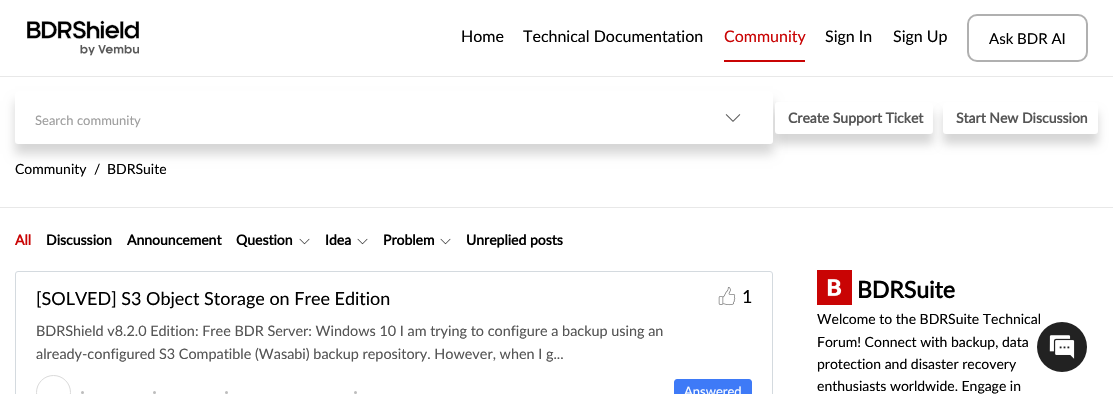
void draw(SkCanvas* c) {
SkPaint p;
p.setAntiAlias(true);
auto F=[&](const char* family, int weight, float size, bool italic = false){SkFontStyle style(weight, SkFontStyle::kNormal_Width,italic ? SkFontStyle::kItalic_Slant : SkFontStyle::kUpright_Slant);SkFont result(fontMgr->matchFamilyStyle(family, style), size);result.setSubpixel(true);return result;};
auto T=[&](const char* s, float x, float y, const SkFont& font){c->drawString(s, x, y, font, p);};
auto R=[&](float x, float y, float w, float h){c->drawRect(SkRect::MakeXYWH(x, y, w, h), p);};
auto Q=[&](float x, float y, float w, float h, float radius){c->drawRoundRect(SkRect::MakeXYWH(x, y, w, h), radius, radius, p);};
auto I=[&](const char* path, float x, float y, float w, float h){auto image = SkImages::DeferredFromEncodedData(SkData::MakeFromFileName(path));c->drawImageRect(image, SkRect::MakeXYWH(x, y, w, h), SkSamplingOptions());};
auto P=[&](const char* data, bool evenOdd = false){SkPath result = *SkParsePath::FromSVGString(data);if (evenOdd) result.setFillType(SkPathFillType::kEvenOdd);return result;};
c->clear(0xffffffff);
p.setColor(0xffe8e8e8);
R(0,76,1113,1);
I("1.png",27,20,112,36);
auto f1 = F("Lato",400,16);
p.setColor(0xff000000);
T("Home",461,42,f1);
T("Technical Documentation",523,42,f1);
p.setColor(0xffc90404);
R(724,60,81,2);
T("Community",724,42,f1);
p.setColor(0xff000000);
T("Sign In",825,42,f1);
T("Sign Up",893,42,f1);
p.setStroke(true);
p.setStrokeWidth(2);
p.setColor(0xffb0b0b0);
c->drawRoundRect(SkRect::MakeXYWH(968,15,119,46),9,9,p);
auto f2 = F("Lato",400,15);
p.setStroke(false);
p.setColor(0xff000000);
T("Ask BDR AI",989,44,f2);
p.setColor(0x29000000);
p.setMaskFilter(SkMaskFilter::MakeBlur(kNormal_SkBlurStyle, 5));
c->drawRect(SkRect::MakeXYWH(15,101,758,53),p);
p.setMaskFilter(nullptr);
p.setMaskFilter(SkMaskFilter::MakeBlur(kNormal_SkBlurStyle, 5));
c->drawRoundRect(SkRect::MakeXYWH(775,112,158,32),3,3,p);
p.setMaskFilter(nullptr);
p.setColor(0xffffffff);
Q(15,91,758,53,3);
auto f3 = F("Lato",400,13);
p.setColor(0xff9e9e9e);
T("Search community",35,125,f3);
I("2.png",725,114,16,8);
p.setColor(0xffffffff);
Q(775,102,158,32,3);
auto f4 = F("Lato",700,14);
p.setColor(0xff555555);
T("Create Support Ticket",788,123,f4);
p.setColor(0x29000000);
p.setMaskFilter(SkMaskFilter::MakeBlur(kNormal_SkBlurStyle, 5));
c->drawRoundRect(SkRect::MakeXYWH(943,112,155,32),3,3,p);
p.setMaskFilter(nullptr);
p.setColor(0xffffffff);
Q(943,102,155,32,3);
p.setColor(0xff555555);
T("Start New Discussion",956,123,f4);
auto f5 = F("Lato",400,14);
p.setColor(0xff000000);
T("Community",15,174,f5);
T("/",94,174,f5);
T("BDRSuite",107,174,f5);
p.setColor(0xffe8e8e8);
R(0,207,1113,1);
p.setColor(0xffc90404);
T("All",15,245,f4);
p.setColor(0xff000000);
T("Discussion",46,245,f4);
T("Announcement",127,245,f4);
T("Question",236,245,f4);
I("3.png",299,238,11,7);
T("Idea",325,245,f4);
I("3.png",357,238,11,7);
T("Problem",383,245,f4);
I("3.png",440,238,11,7);
T("Unreplied posts",466,245,f4);
p.setStroke(true);
p.setStrokeWidth(1);
p.setColor(0xffd4dadf);
c->drawRoundRect(SkRect::MakeXYWH(15.5,271.5,757,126),2.5,2.5,p);
auto f6 = F("Lato",400,18);
p.setStroke(false);
p.setColor(0xff000000);
T("[SOLVED] S3 Object Storage on Free Edition",36,305,f6);
auto f7 = F("Lato",400,14.4);
p.setColor(0xff555555);
T("BDRShield v8.2.0 Edition: Free BDR Server: Windows 10 I am trying to configure a backup using an",36,336,f7);
T("already-configured S3 Compatible (Wasabi) backup repository. However, when I g...",36,359,f7);
I("4.png",718,287,18,19);
p.setColor(0xff000000);
T("1",742,303,f6);
p.setStroke(true);
p.setColor(0xffdadada);
c->drawCircle(53.5,392.5,17,p);
p.setStroke(false);
p.setColor(0xffbdbdbd);
c->drawCircle(82.5,392.5,1.5,p);
c->drawCircle(154.5,392.5,1.5,p);
c->drawCircle(226.5,392.5,1.5,p);
c->drawCircle(355.5,392.5,1.5,p);
p.setColor(0xff3e7af7);
c->drawPath(P("M677 379h72c1.5 0 3 1.5 3 3v12h-78v-12c0-1.5 1.5-3 3-3z"),p);
p.setColor(0xffffffff);
T("Answered",684,396,f3);
I("5.png",817,270,35,35);
auto f8 = F("Lato",700,23);
p.setColor(0xff000000);
T("BDRSuite",857,298,f8);
T("Welcome to the BDRSuite Technical",817,324,f5);
T("Forum! Connect with backup, data",817,347,f5);
T("protection and disaster recovery",817,369,f5);
T("enthusiasts worldwide. Engage in",817,391,f5);
I("6.png",1037,322,50,50);
}
